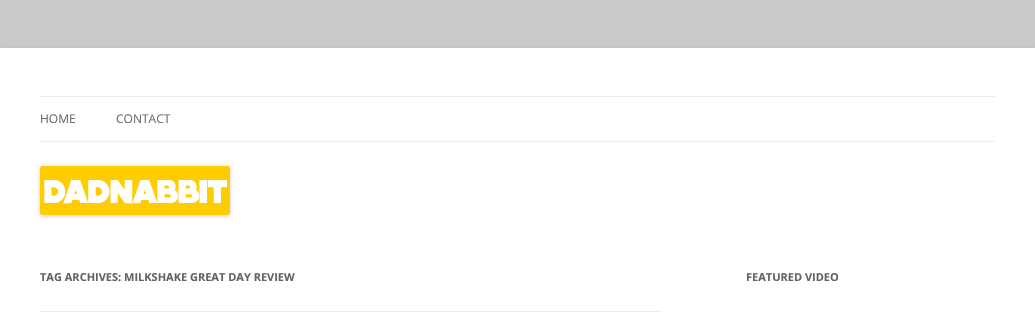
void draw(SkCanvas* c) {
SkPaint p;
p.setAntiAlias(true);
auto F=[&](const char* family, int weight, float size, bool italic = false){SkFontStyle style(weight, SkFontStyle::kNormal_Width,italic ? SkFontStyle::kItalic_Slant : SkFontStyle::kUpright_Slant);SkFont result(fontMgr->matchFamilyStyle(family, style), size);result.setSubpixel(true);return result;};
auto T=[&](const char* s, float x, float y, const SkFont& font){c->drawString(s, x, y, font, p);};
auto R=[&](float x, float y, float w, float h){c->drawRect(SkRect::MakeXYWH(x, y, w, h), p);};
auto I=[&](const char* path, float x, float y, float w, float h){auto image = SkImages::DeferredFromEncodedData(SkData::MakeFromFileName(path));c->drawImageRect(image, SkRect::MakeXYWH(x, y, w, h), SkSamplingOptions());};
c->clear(0xffc9c9c9);
p.setColor(0x4d646464);
p.setMaskFilter(SkMaskFilter::MakeBlur(kNormal_SkBlurStyle, 3));
c->drawRect(SkRect::MakeXYWH(0,50,1035,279),p);
p.setMaskFilter(nullptr);
p.setColor(0xffffffff);
R(0,48,1035,272);
p.setColor(0xffededed);
R(40,96,955,1);
R(40,141,955,1);
auto f1 = F("Open Sans",400,12);
p.setColor(0xff6a6a6a);
T("HOME",40,123,f1);
T("CONTACT",116,123,f1);
p.setColor(0x33000000);
p.setMaskFilter(SkMaskFilter::MakeBlur(kNormal_SkBlurStyle, 2));
c->drawRoundRect(SkRect::MakeXYWH(40,167,190,49),3,3,p);
p.setMaskFilter(nullptr);
I("1.png",40,166,190,49);
p.setColor(0xffededed);
R(40,311,622,1);
auto f2 = F("Open Sans",700,11);
p.setColor(0xff636363);
T("TAG ARCHIVES: MILKSHAKE GREAT DAY REVIEW",40,281,f2);
T("FEATURED VIDEO",746,281,f2);
}
